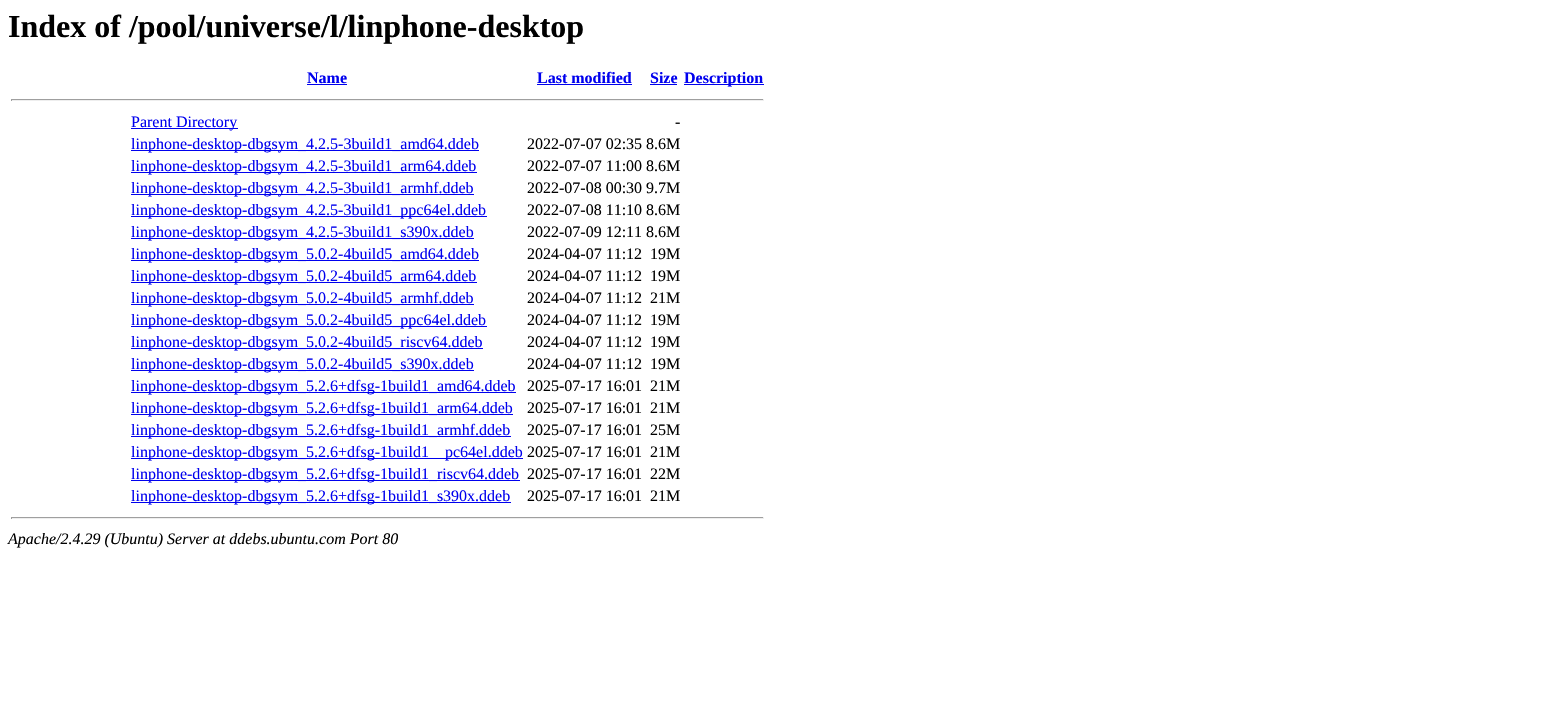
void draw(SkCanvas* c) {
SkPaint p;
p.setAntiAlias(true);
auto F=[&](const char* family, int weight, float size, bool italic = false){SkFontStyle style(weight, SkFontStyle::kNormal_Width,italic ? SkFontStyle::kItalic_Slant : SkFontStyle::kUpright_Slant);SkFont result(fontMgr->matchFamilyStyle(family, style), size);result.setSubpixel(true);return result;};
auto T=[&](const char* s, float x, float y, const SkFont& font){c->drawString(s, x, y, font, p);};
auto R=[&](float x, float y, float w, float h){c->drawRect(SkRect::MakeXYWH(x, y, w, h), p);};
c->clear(0xffffffff);
auto f1 = F("Liberation Serif",700,32);
p.setColor(0xff000000);
T("Index of /pool/universe/l/linphone-desktop",8,37,f1);
auto f2 = F("Liberation Serif",700,16);
p.setColor(0xff0000ee);
T("Name",307,83,f2);
R(307,84,40,1);
T("Last modified",537,83,f2);
R(537,84,95,1);
T("Size",650,83,f2);
R(650,84,27,1);
R(684,84,80,1);
T("Description",684,83,f2);
p.setColor(0xff9f9f9f);
R(11,99,753,1);
p.setColor(0xffeeeeee);
R(763,99,1,2);
R(11,100,753,1);
p.setColor(0xff9f9f9f);
R(11,99,1,2);
p.setColor(0xff0000ee);
R(131,128,107,1);
auto f3 = F("Liberation Serif",400,16);
T("Parent Directory",131,127,f3);
p.setColor(0xff000000);
T("-",675,127,f3);
p.setColor(0xff0000ee);
R(131,150,348,1);
T("linphone-desktop-dbgsym_4.2.5-3build1_amd64.ddeb",131,149,f3);
p.setColor(0xff000000);
T("2022-07-07 02:35 8.6M",527,149,f3);
p.setColor(0xff0000ee);
R(131,172,346,1);
T("linphone-desktop-dbgsym_4.2.5-3build1_arm64.ddeb",131,171,f3);
p.setColor(0xff000000);
T("2022-07-07 11:00 8.6M",527,171,f3);
p.setColor(0xff0000ee);
R(131,194,343,1);
T("linphone-desktop-dbgsym_4.2.5-3build1_armhf.ddeb",131,193,f3);
p.setColor(0xff000000);
T("2022-07-08 00:30 9.7M",527,193,f3);
p.setColor(0xff0000ee);
R(131,216,356,1);
T("linphone-desktop-dbgsym_4.2.5-3build1_ppc64el.ddeb",131,215,f3);
p.setColor(0xff000000);
T("2022-07-08 11:10 8.6M",527,215,f3);
p.setColor(0xff0000ee);
R(131,238,343,1);
T("linphone-desktop-dbgsym_4.2.5-3build1_s390x.ddeb",131,237,f3);
p.setColor(0xff000000);
T("2022-07-09 12:11 8.6M",527,237,f3);
p.setColor(0xff0000ee);
R(131,260,348,1);
T("linphone-desktop-dbgsym_5.0.2-4build5_amd64.ddeb",131,259,f3);
p.setColor(0xff000000);
T("2024-04-07 11:12",527,259,f3);
T("19M",650,259,f3);
p.setColor(0xff0000ee);
R(131,282,346,1);
T("linphone-desktop-dbgsym_5.0.2-4build5_arm64.ddeb",131,281,f3);
p.setColor(0xff000000);
T("2024-04-07 11:12",527,281,f3);
T("19M",650,281,f3);
p.setColor(0xff0000ee);
R(131,304,343,1);
T("linphone-desktop-dbgsym_5.0.2-4build5_armhf.ddeb",131,303,f3);
p.setColor(0xff000000);
T("2024-04-07 11:12",527,303,f3);
T("21M",650,303,f3);
p.setColor(0xff0000ee);
R(131,326,356,1);
T("linphone-desktop-dbgsym_5.0.2-4build5_ppc64el.ddeb",131,325,f3);
p.setColor(0xff000000);
T("2024-04-07 11:12",527,325,f3);
T("19M",650,325,f3);
p.setColor(0xff0000ee);
R(131,348,352,1);
T("linphone-desktop-dbgsym_5.0.2-4build5_riscv64.ddeb",131,347,f3);
p.setColor(0xff000000);
T("2024-04-07 11:12",527,347,f3);
T("19M",650,347,f3);
p.setColor(0xff0000ee);
R(131,370,343,1);
T("linphone-desktop-dbgsym_5.0.2-4build5_s390x.ddeb",131,369,f3);
p.setColor(0xff000000);
T("2024-04-07 11:12",527,369,f3);
T("19M",650,369,f3);
p.setColor(0xff0000ee);
R(131,392,385,1);
T("linphone-desktop-dbgsym_5.2.6+dfsg-1build1_amd64.ddeb",131,391,f3);
p.setColor(0xff000000);
T("2025-07-17 16:01",527,391,f3);
T("21M",650,391,f3);
p.setColor(0xff0000ee);
R(131,414,382,1);
T("linphone-desktop-dbgsym_5.2.6+dfsg-1build1_arm64.ddeb",131,413,f3);
p.setColor(0xff000000);
T("2025-07-17 16:01",527,413,f3);
T("21M",650,413,f3);
p.setColor(0xff0000ee);
R(131,436,380,1);
T("linphone-desktop-dbgsym_5.2.6+dfsg-1build1_armhf.ddeb",131,435,f3);
p.setColor(0xff000000);
T("2025-07-17 16:01",527,435,f3);
T("25M",650,435,f3);
p.setColor(0xff0000ee);
R(131,458,392,1);
T("linphone-desktop-dbgsym_5.2.6+dfsg-1build1",131,457,f3);
T("pc64el.ddeb",445,457,f3);
p.setColor(0xff000000);
T("2025-07-17 16:01",527,457,f3);
T("21M",650,457,f3);
p.setColor(0xff0000ee);
R(131,480,389,1);
T("linphone-desktop-dbgsym_5.2.6+dfsg-1build1_riscv64.ddeb",131,479,f3);
p.setColor(0xff000000);
T("2025-07-17 16:01",527,479,f3);
T("22M",650,479,f3);
p.setColor(0xff0000ee);
R(131,502,380,1);
T("linphone-desktop-dbgsym_5.2.6+dfsg-1build1_s390x.ddeb",131,501,f3);
p.setColor(0xff000000);
T("2025-07-17 16:01",527,501,f3);
T("21M",650,501,f3);
p.setColor(0xff9f9f9f);
R(11,517,753,1);
p.setColor(0xffeeeeee);
R(763,517,1,2);
R(11,518,753,1);
p.setColor(0xff9f9f9f);
R(11,517,1,2);
auto f4 = F("Liberation Serif",400,16,true);
p.setColor(0xff000000);
T("Apache/2.4.29 (Ubuntu) Server at ddebs.ubuntu.com Port 80",8,544,f4);
}
